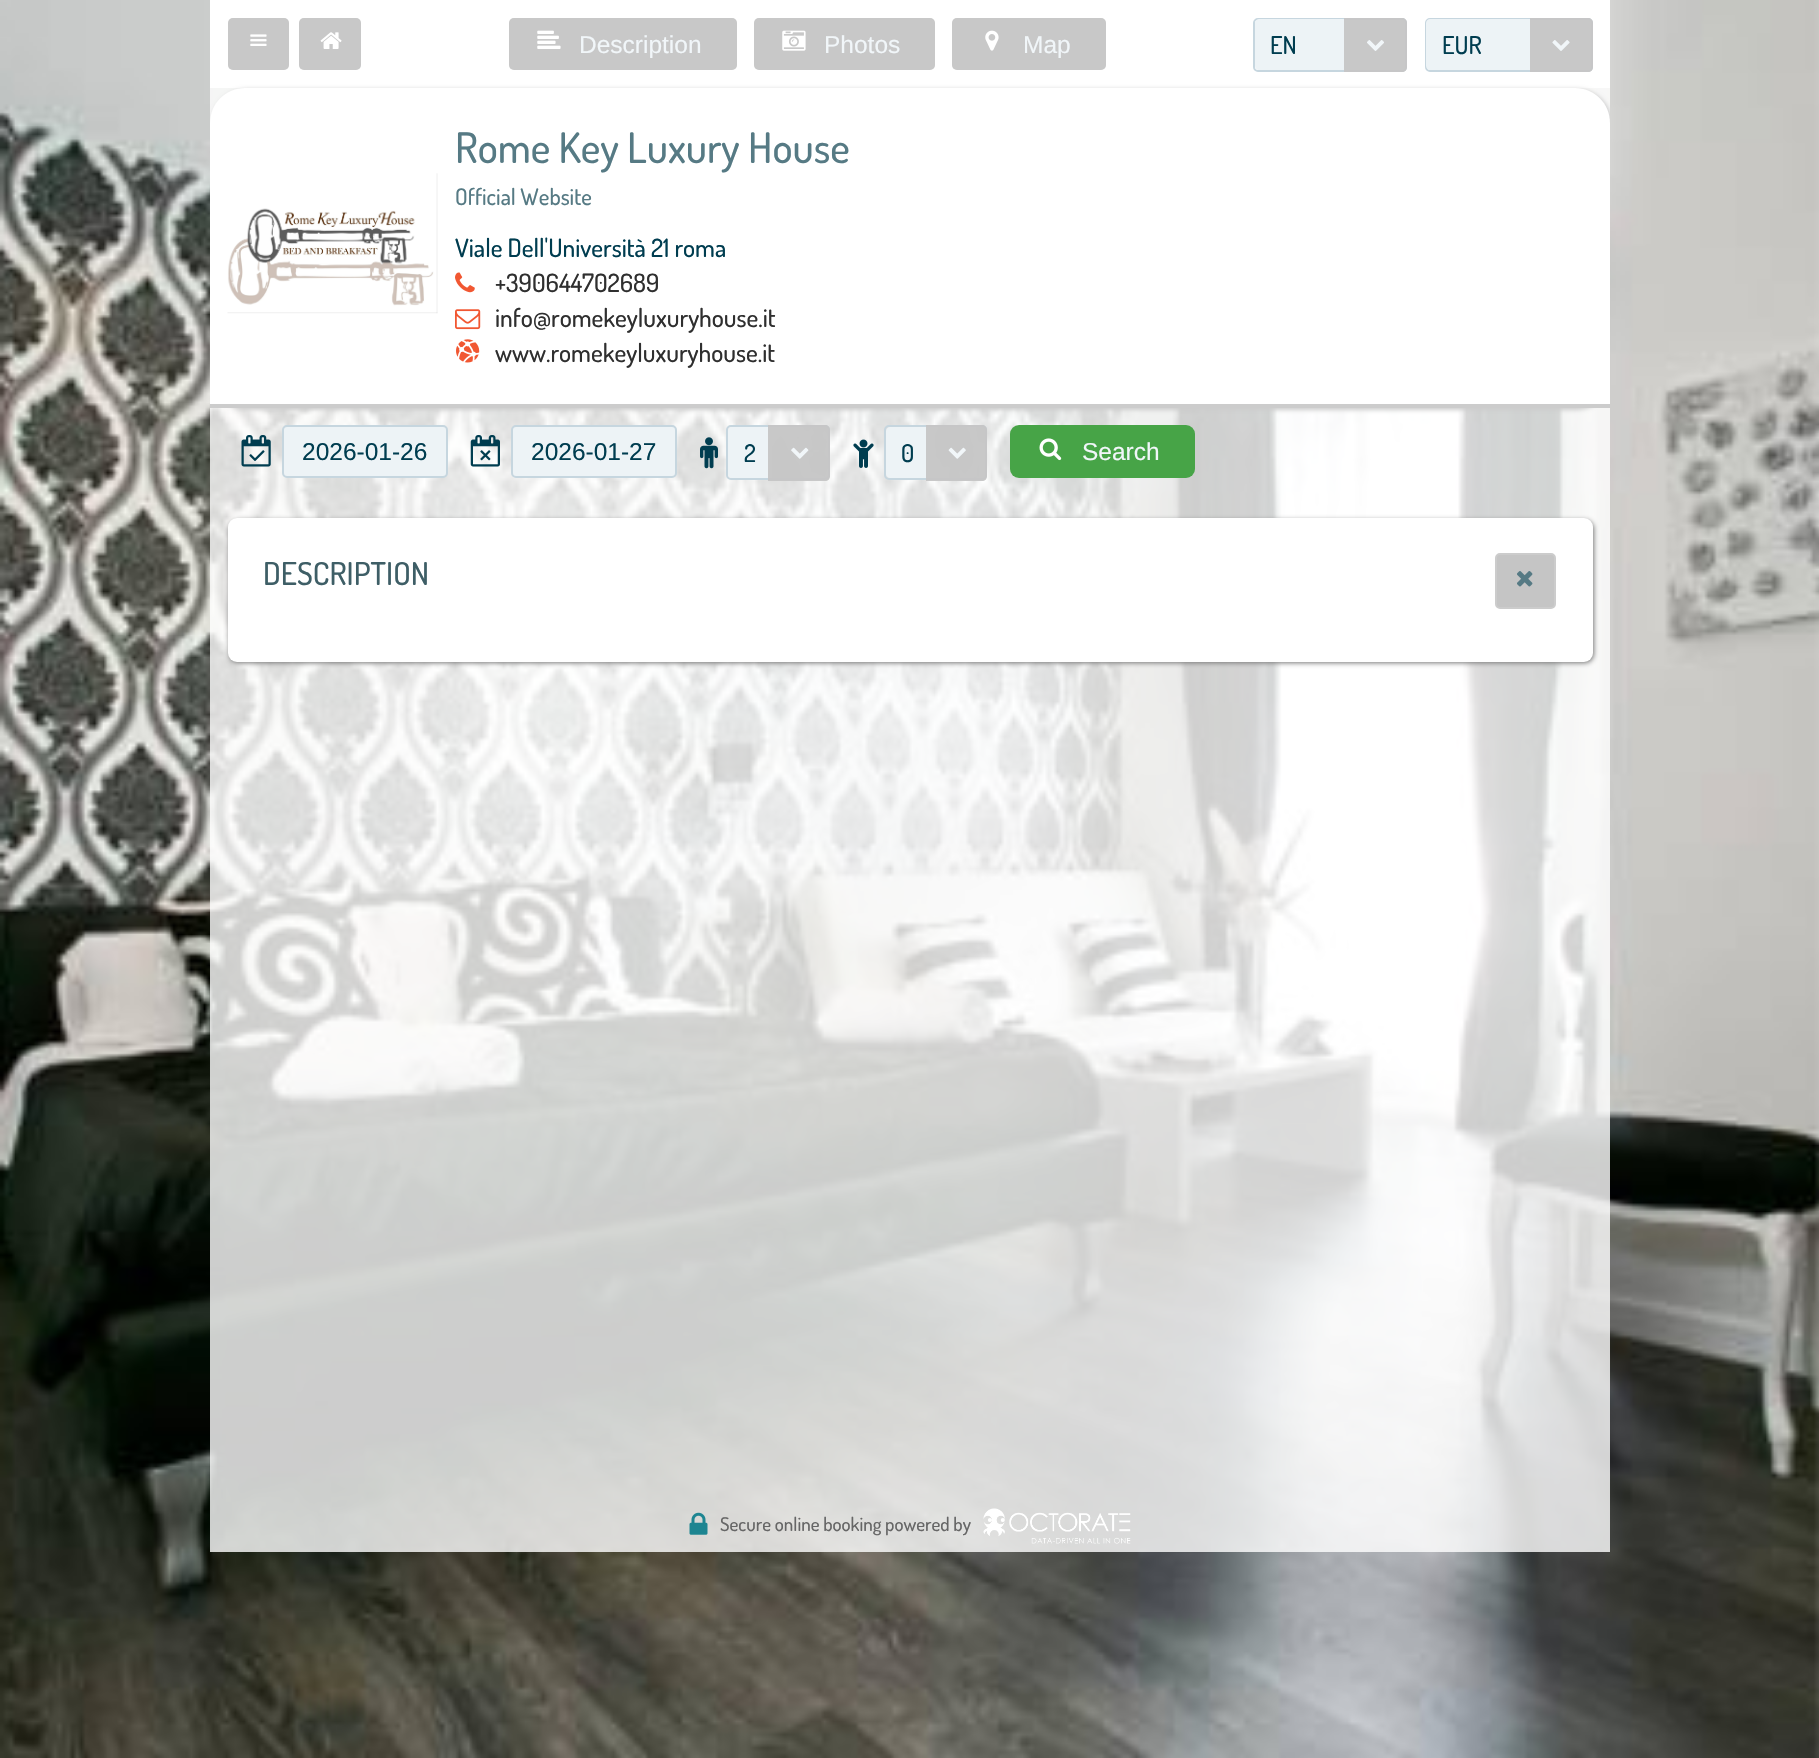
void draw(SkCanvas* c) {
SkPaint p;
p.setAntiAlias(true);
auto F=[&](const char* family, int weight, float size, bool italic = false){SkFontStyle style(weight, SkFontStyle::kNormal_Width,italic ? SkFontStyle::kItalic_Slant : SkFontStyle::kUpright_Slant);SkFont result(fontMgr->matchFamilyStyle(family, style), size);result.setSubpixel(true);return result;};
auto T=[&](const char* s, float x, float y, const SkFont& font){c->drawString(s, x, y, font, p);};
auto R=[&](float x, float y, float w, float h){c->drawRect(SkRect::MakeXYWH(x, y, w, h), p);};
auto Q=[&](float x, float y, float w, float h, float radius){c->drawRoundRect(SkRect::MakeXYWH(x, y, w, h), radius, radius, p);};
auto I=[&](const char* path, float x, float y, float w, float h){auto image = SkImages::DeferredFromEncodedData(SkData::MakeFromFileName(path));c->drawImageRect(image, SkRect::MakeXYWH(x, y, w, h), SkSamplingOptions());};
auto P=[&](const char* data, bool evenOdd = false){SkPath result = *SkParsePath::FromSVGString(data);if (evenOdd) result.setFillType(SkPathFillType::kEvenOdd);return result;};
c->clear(0xffffffff);
I("1.png",0,0,1819,1758);
p.setColor(0xffffffff);
R(210,0,1400,88);
p.setColor(0xffefefef);
Q(228,18,61,52,5);
p.setColor(0xf2c5c5c5);
Q(228,18,61,52,5);
I("2.png",250,34,17,12);
p.setColor(0xffefefef);
Q(299,18,62,52,5);
p.setColor(0xf2c5c5c5);
Q(299,18,62,52,5);
I("3.png",320,32,22,17);
p.setColor(0xffefefef);
Q(509,18,228,52,5);
p.setColor(0xf2c5c5c5);
Q(509,18,228,52,5);
I("4.png",537,30,24,19);
auto f1 = F("Liberation Sans",400,24.5);
p.setColor(0xfff1f6f9);
T("Description",579,53,f1);
p.setColor(0xffefefef);
Q(754,18,181,52,5);
p.setColor(0xf2c5c5c5);
Q(754,18,181,52,5);
I("5.png",782,30,24,21);
p.setColor(0xfff1f6f9);
T("Photos",824,53,f1);
p.setColor(0xffefefef);
Q(952,18,154,52,5);
p.setColor(0xf2c5c5c5);
Q(952,18,154,52,5);
I("6.png",985,30,14,21);
p.setColor(0xfff1f6f9);
T("Map",1023,53,f1);
p.setStroke(true);
p.setStrokeWidth(2);
p.setColor(0xffc6d6df);
c->drawRoundRect(SkRect::MakeXYWH(1254,19,152,52),4,4,p);
p.setStroke(false);
p.setColor(0xffedf3f6);
c->drawPath(P("M1259 19h85v51h-85c-2 0-4-2-4-4v-43c0-2 2-4 4-4z"),p);
auto f2 = F("Dosis",500,24.5);
p.setColor(0xff003d50);
T("EN",1270,54,f2);
p.setColor(0xf2c5c5c5);
c->drawPath(P("M1344 18h58c3 0 5 2 5 5v44c0 3-2 5-5 5h-58z"),p);
I("7.png",1367,40,17,11);
p.setStroke(true);
p.setColor(0xffc6d6df);
c->drawRoundRect(SkRect::MakeXYWH(1426,19,166,52),4,4,p);
p.setStroke(false);
p.setColor(0xffedf3f6);
c->drawPath(P("M1430 19h100v51h-100c-2 0-4-2-4-4v-43c0-2 2-4 4-4z"),p);
p.setColor(0xff003d50);
T("EUR",1442,54,f2);
p.setColor(0xf2c5c5c5);
c->drawPath(P("M1530 18h58c3 0 5 2 5 5v44c0 3-2 5-5 5h-58z"),p);
I("8.png",1552,40,18,11);
p.setColor(0xccffffff);
R(210,88,1400,413);
c->save();
c->clipRect(SkRect::MakeXYWH(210,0,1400,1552));
p.setColor(0xffcccccc);
p.setMaskFilter(SkMaskFilter::MakeBlur(kNormal_SkBlurStyle, 2));
c->drawRoundRect(SkRect::MakeXYWH(212,89,1400,321),35,35,p);
p.setMaskFilter(nullptr);
c->restore();
p.setColor(0xffffffff);
c->drawPath(P("M245 88h1330c19.5 0 35 15.5 35 35v285h-1400v-285c0-19.5 15.5-35 35-35z"),p);
p.setColor(0xffcccccc);
R(210,404,1400,4);
I("9.png",227,173,211,141);
auto f3 = F("Dosis",500,42);
p.setColor(0xff567a84);
T("Rome Key Luxury House",455,163,f3);
auto f4 = F("Dosis",500,22.75);
T("Official Website",455,205,f4);
auto f5 = F("Dosis",500,25.25);
p.setColor(0xff003d50);
T("Viale Dell'Università 21 roma",455,257,f5);
I("10.png",455,272,20,21);
p.setColor(0xff2f2f2f);
T("+390644702689",495,292,f5);
I("11.png",455,309,26,21);
T("info@romekeyluxuryhouse.it",495,327,f5);
I("12.png",456,339,24,24);
T("www.romekeyluxuryhouse.it",495,362,f5);
I("13.png",241,435,30,32);
p.setColor(0xffedf3f6);
c->drawRoundRect(SkRect::MakeXYWH(283,426,164,51),4,4,p);
p.setStroke(true);
p.setColor(0xffc6d6df);
c->drawRoundRect(SkRect::MakeXYWH(283,426,164,51),4,4,p);
p.setStroke(false);
p.setColor(0xff003d50);
T("2026-01-26",302,460,f1);
I("14.png",470,435,30,32);
p.setColor(0xffedf3f6);
c->drawRoundRect(SkRect::MakeXYWH(512,426,164,51),4,4,p);
p.setStroke(true);
p.setColor(0xffc6d6df);
c->drawRoundRect(SkRect::MakeXYWH(512,426,164,51),4,4,p);
p.setStroke(false);
p.setColor(0xff003d50);
T("2026-01-27",531,460,f1);
I("15.png",700,437,18,32);
p.setStroke(true);
p.setColor(0xffc6d6df);
c->drawRoundRect(SkRect::MakeXYWH(727,426,102,53),4,4,p);
p.setStroke(false);
p.setColor(0xffedf3f6);
c->drawPath(P("M732 427h40v51h-40c-2 0-4-2-4-4v-43c0-2 2-4 4-4z"),p);
p.setColor(0xff003d50);
T("2",744,462,f2);
p.setColor(0xf2c5c5c5);
c->drawPath(P("M768 425h57c3 0 5 2 5 5v46c0 3-2 5-5 5h-57z"),p);
I("16.png",791,447,18,12);
I("17.png",853,439,21,29);
p.setStroke(true);
p.setColor(0xffc6d6df);
c->drawRoundRect(SkRect::MakeXYWH(885,426,101,53),4,4,p);
p.setStroke(false);
p.setColor(0xffedf3f6);
c->drawPath(P("M890 427h39v51h-39c-2 0-4-2-4-4v-43c0-2 2-4 4-4z"),p);
p.setColor(0xff003d50);
T("0",901,462,f2);
p.setColor(0xf2c5c5c5);
c->drawPath(P("M926 425h56c3 0 5 2 5 5v46c0 3-2 5-5 5h-56z"),p);
I("18.png",948,447,18,12);
p.setColor(0xff47a447);
Q(1010,425,185,53,9);
I("19.png",1039,438,23,23);
p.setColor(0xfff1f6f9);
T("Search",1082,460,f1);
p.setColor(0xccffffff);
R(210,501,1400,997);
p.setColor(0xff777777);
p.setMaskFilter(SkMaskFilter::MakeBlur(kNormal_SkBlurStyle, 2.5));
c->drawRoundRect(SkRect::MakeXYWH(229,520,1365,143),9,9,p);
p.setMaskFilter(nullptr);
p.setColor(0xffffffff);
Q(228,518,1365,144,9);
auto f6 = F("Dosis",500,31.5);
p.setColor(0xff3e5e66);
T("DESCRIPTION",263,585,f6);
p.setColor(0xffc5c5c5);
c->drawRoundRect(SkRect::MakeXYWH(1496,554,59,54),4,4,p);
p.setStroke(true);
p.setColor(0xffcccccc);
c->drawRoundRect(SkRect::MakeXYWH(1496,554,59,54),4,4,p);
I("20.png",1517,571,16,16);
p.setStroke(false);
p.setColor(0xccffffff);
R(210,1498,1400,54);
I("21.png",689,1512,19,23);
auto f7 = F("Dosis",500,18.9);
p.setColor(0xff666666);
T("Secure online booking powered by",720,1531,f7);
I("22.png",983,1508,148,36);
}
